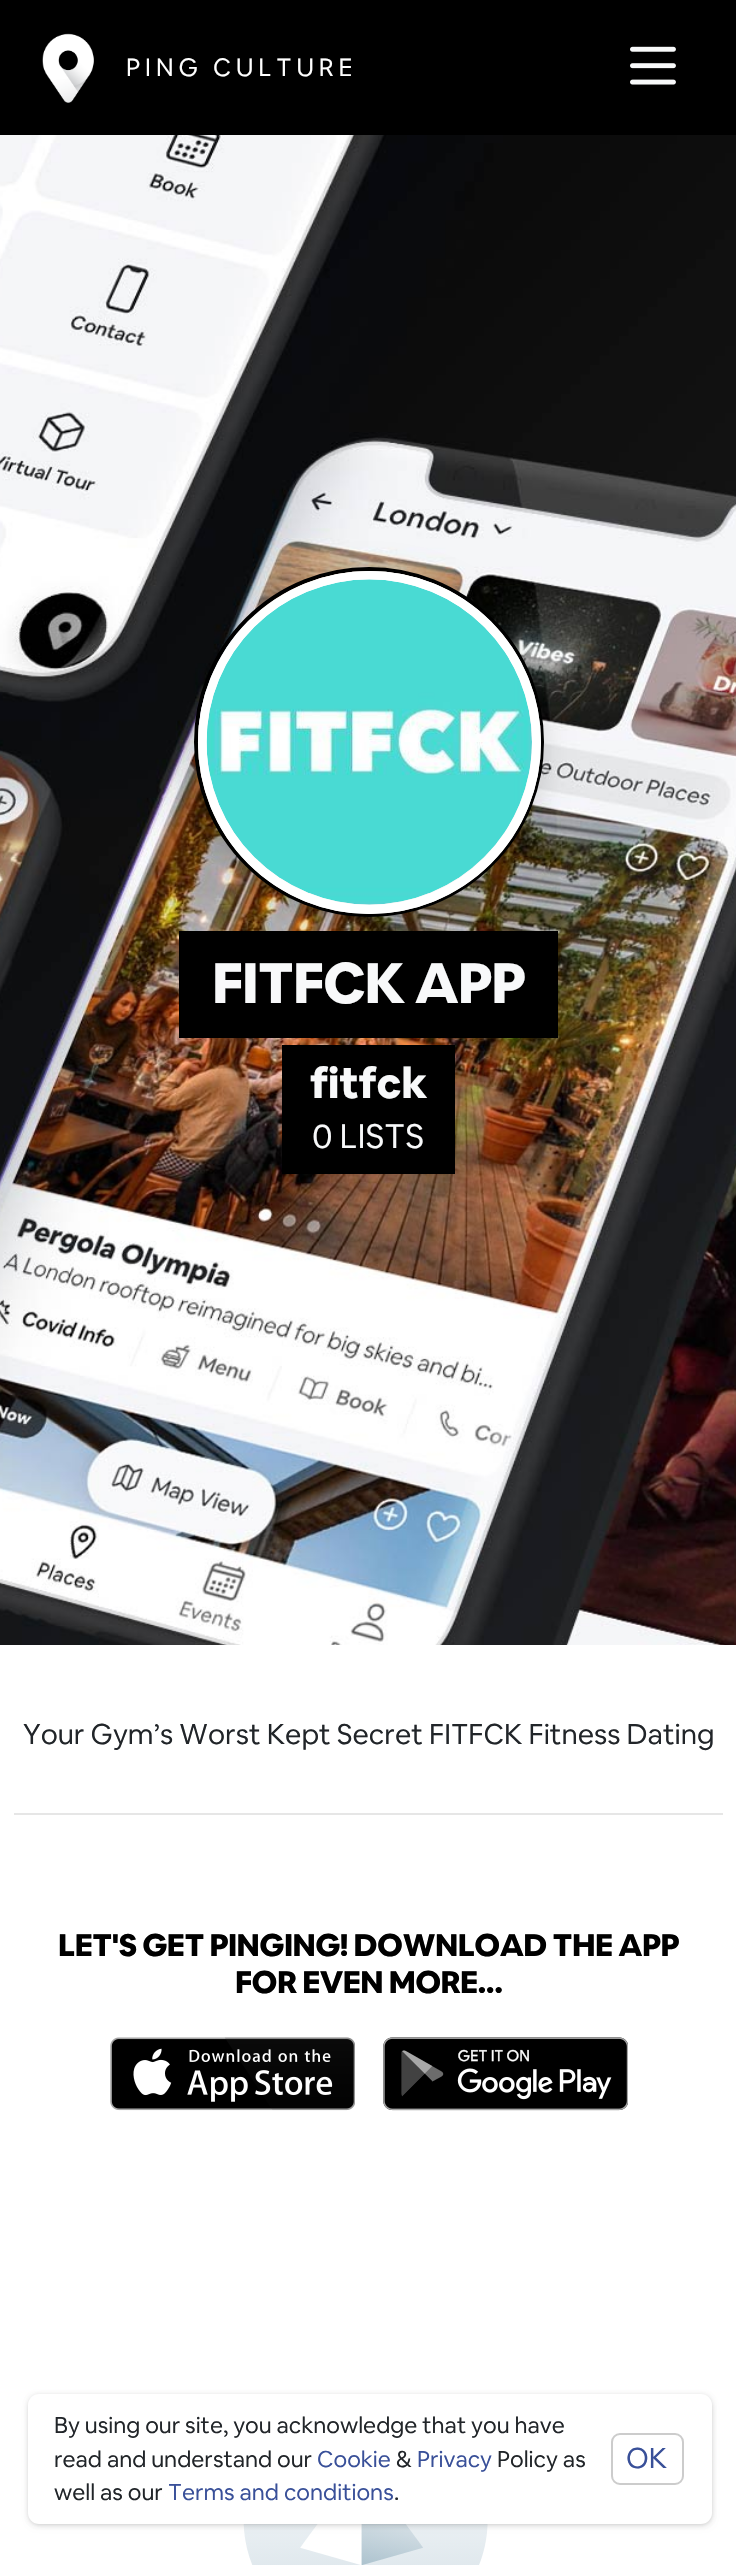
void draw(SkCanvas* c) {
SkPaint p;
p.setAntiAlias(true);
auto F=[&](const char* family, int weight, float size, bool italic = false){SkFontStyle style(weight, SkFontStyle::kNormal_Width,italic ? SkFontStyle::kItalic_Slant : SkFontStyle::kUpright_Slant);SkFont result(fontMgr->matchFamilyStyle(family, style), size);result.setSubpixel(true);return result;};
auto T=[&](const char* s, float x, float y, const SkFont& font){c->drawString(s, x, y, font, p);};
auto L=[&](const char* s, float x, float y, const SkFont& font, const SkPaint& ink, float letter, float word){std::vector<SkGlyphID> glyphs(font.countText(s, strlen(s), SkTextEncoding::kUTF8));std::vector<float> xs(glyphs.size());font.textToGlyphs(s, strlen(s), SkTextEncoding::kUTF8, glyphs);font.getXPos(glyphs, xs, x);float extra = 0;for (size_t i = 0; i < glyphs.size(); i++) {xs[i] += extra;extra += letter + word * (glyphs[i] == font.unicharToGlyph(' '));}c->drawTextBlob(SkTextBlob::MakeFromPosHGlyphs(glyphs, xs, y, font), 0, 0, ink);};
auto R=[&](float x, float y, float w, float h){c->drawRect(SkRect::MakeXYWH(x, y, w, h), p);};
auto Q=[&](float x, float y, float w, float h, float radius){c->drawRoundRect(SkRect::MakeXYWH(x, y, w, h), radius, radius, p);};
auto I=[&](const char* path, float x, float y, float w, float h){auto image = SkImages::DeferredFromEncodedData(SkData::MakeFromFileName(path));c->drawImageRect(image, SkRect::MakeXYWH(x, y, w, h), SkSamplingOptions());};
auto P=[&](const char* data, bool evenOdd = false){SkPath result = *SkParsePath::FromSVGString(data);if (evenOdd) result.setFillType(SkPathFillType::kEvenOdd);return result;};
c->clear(0xffffffff);
p.setColor(0xff000000);
R(0,0,736,135);
I("1.png",42,33,52,70);
auto f1 = F("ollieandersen",300,24.5);
p.setColor(0xffffffff);
L("PING CULTURE",126,76,f1,p,4.9,0);
I("2.png",630,46,46,39);
I("3.png",0,135,736,1510);
p.setColor(0xff000000);
R(179,931,379,107);
p.setColor(0x1f000000);
p.setMaskFilter(SkMaskFilter::MakeBlur(kNormal_SkBlurStyle, 14));
c->drawRoundRect(SkRect::MakeXYWH(194,574,350,350),175,175,p);
p.setMaskFilter(nullptr);
p.setStroke(true);
p.setStrokeWidth(4);
p.setColor(0xff000000);
c->drawCircle(369,742,173,p);
p.setStroke(false);
p.setColor(0xfff4f5f4);
c->drawCircle(369.5,742.5,171.5,p);
c->save();
c->clipPath(P("M369.5 571c94.5 0 171.5 77 171.5 171.5c0 94.5-77 171.5-171.5 171.5c-94.5 0-171.5-77-171.5-171.5c0-94.5 77-171.5 171.5-171.5z"),true);
{
const SkColor colors[] = {0x00ffffff,0x80ffffff,0x00ffffff};
const float stops[] = {0,.5,.8};
const SkPoint ends[] = {{112,922}, {243,922}};
p.setShader(SkGradientShader::MakeLinear(ends, colors, stops, 3, SkTileMode::kClamp));
p.setAlpha(255);
}
R(198,671,17,144);
c->restore();
p.setStroke(true);
p.setStrokeWidth(9);
p.setShader(nullptr);
p.setColor(0xffffffff);
c->drawCircle(369.5,742.5,167,p);
I("4.png",206,579,326,326);
auto f2 = F("ollieandersen",700,56);
p.setStroke(false);
p.setColor(0xfff8f9fa);
L("FITFCK APP",212,1003,f2,p,-1.1,0);
p.setColor(0xff000000);
R(282,1045,173,129);
auto f3 = F("ollieandersen",700,42);
p.setColor(0xfff8f9fa);
T("fitfck",310,1098,f3);
auto f4 = F("ollieandersen",300,33.5);
T("0 LISTS",312,1148,f4);
auto f5 = F("ollieandersen",300,28);
p.setColor(0xff212529);
T("Your Gym’s Worst Kept Secret FITFCK Fitness Dating",23,1744,f5);
p.setColor(0xffe6e6e6);
R(14,1813,709,2);
auto f6 = F("ollieandersen",700,30.8);
p.setColor(0xff000000);
L("LET'S GET PINGING! DOWNLOAD THE APP",58,1956,f6,p,-.6,0);
L("FOR EVEN MORE...",235,1993,f6,p,-.6,0);
I("5.png",110,2037,245,74);
I("6.png",383,2037,245,74);
I("7.png",243,2524,245,41);
p.setColor(0x1f000000);
p.setMaskFilter(SkMaskFilter::MakeBlur(kNormal_SkBlurStyle, 3.5));
c->drawRoundRect(SkRect::MakeXYWH(30,2399,681,126),9,9,p);
p.setMaskFilter(nullptr);
p.setColor(0x12000000);
p.setMaskFilter(SkMaskFilter::MakeBlur(kNormal_SkBlurStyle, 2.5));
c->drawRoundRect(SkRect::MakeXYWH(30,2398,681,126),9,9,p);
p.setMaskFilter(nullptr);
p.setColor(0x14000000);
p.setMaskFilter(SkMaskFilter::MakeBlur(kNormal_SkBlurStyle, 2));
c->drawRoundRect(SkRect::MakeXYWH(28,2394,684,130),11,11,p);
p.setMaskFilter(nullptr);
p.setColor(0xffffffff);
Q(28,2394,684,130,11);
auto f7 = F("ollieandersen",300,22.4);
p.setColor(0xff212529);
T("By using our site, you acknowledge that you have",54,2433,f7);
T("read and understand our",54,2467,f7);
p.setColor(0xff395099);
T("Cookie",317,2467,f7);
p.setColor(0xff212529);
T("&",396,2467,f7);
p.setColor(0xff395099);
T("Privacy",417,2467,f7);
p.setColor(0xff212529);
T("Policy as",497,2467,f7);
T("well as our",54,2500,f7);
p.setColor(0xff395099);
T("Terms and conditions",168,2500,f7);
p.setColor(0xff212529);
T(".",394,2500,f7);
p.setStroke(true);
p.setStrokeWidth(2);
p.setColor(0xffcccccc);
c->drawRoundRect(SkRect::MakeXYWH(612,2434,71,50),8,8,p);
p.setStroke(false);
p.setColor(0xff395099);
T("OK",626,2468,f5);
}
